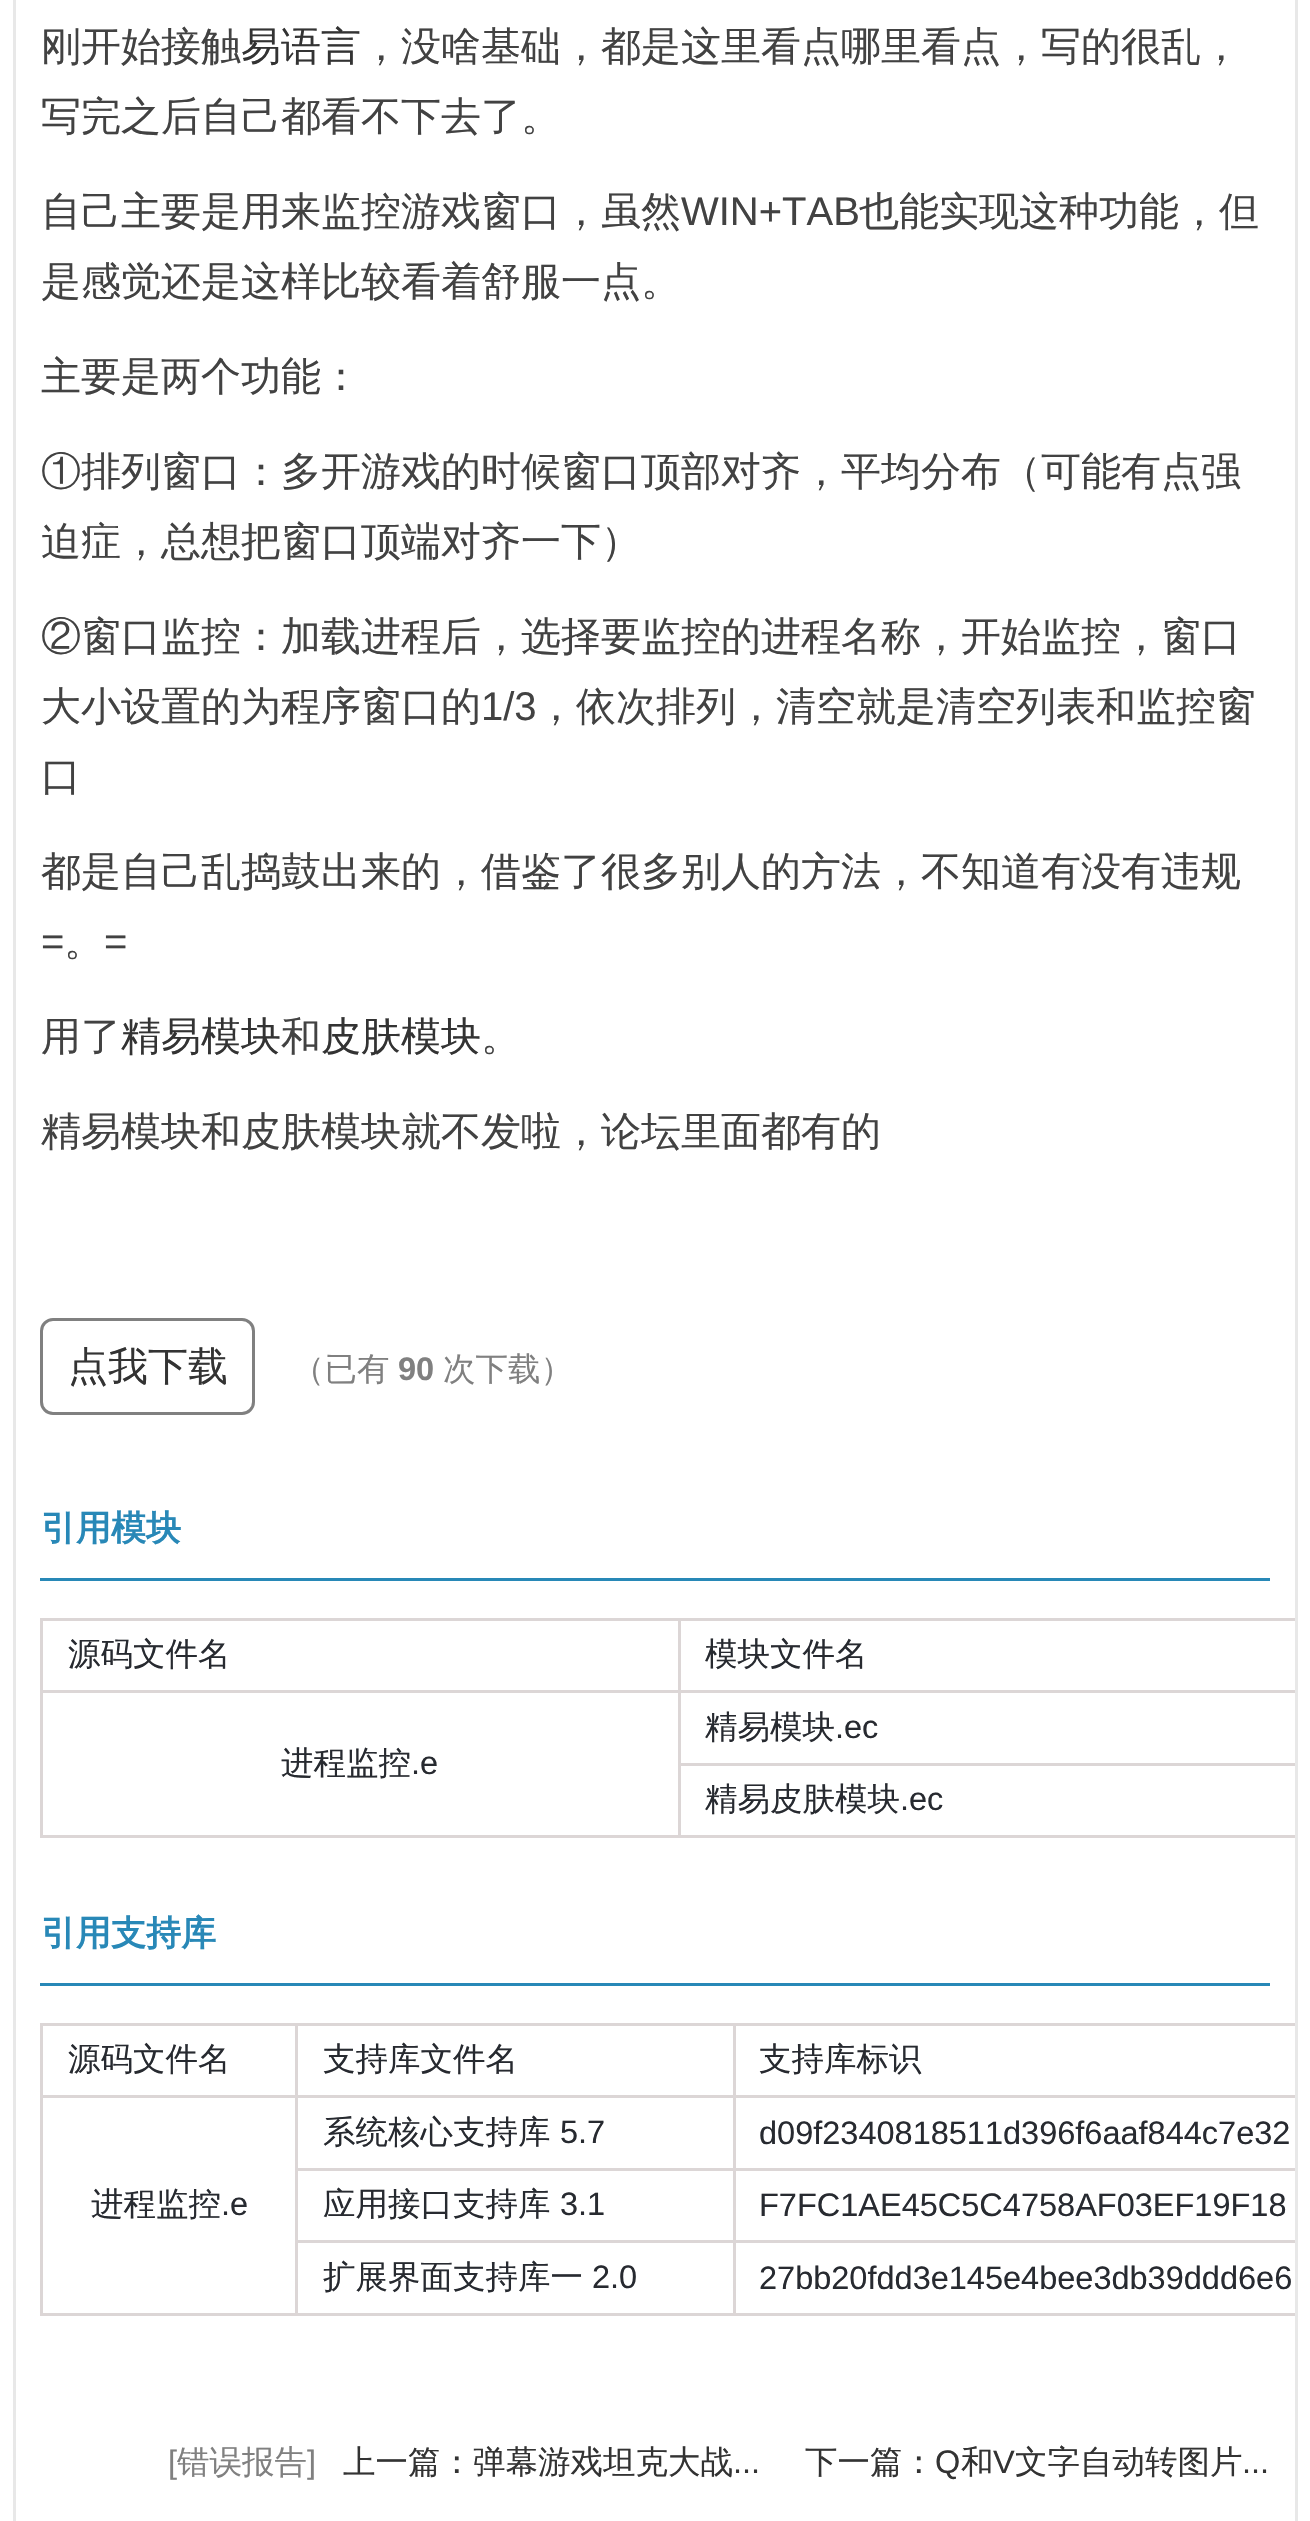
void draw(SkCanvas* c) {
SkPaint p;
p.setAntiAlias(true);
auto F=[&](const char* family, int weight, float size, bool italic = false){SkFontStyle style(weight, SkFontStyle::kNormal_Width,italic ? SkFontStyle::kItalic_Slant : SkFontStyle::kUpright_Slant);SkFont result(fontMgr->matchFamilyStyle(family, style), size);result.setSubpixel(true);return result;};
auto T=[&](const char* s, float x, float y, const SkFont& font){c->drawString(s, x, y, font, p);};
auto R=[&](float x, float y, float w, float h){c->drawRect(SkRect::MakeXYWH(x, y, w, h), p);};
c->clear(0xffffffff);
p.setColor(0xffe8e8e8);
R(1295,0,3,2521);
R(13,0,3,2521);
auto f1 = F("WenQuanYi Zen Hei",500,40);
p.setColor(0xff424242);
T("刚开始接触",41,60,f1);
p.setColor(0xff333333);
T("易语言",241,60,f1);
p.setColor(0xff424242);
T("，没啥基础，都是这里看点哪里看点，写的很乱，",361,60,f1);
T("写完之后自己都看不下去了。",41,130,f1);
T("自己主要是用来监控游戏窗口，虽然",41,225,f1);
auto f2 = F("Liberation Sans",400,40);
T("WIN+TAB",681,225,f2);
T("也能实现这种功能，但",859,225,f1);
T("是感觉还是这样比较看着舒服一点。",41,295,f1);
T("主要是两个功能：",41,390,f1);
T("①排列窗口：多开游戏的时候窗口顶部对齐，平均分布（可能有点强",41,485,f1);
T("迫症，总想把窗口顶端对齐一下）",41,555,f1);
T("②窗口监控：加载进程后，选择要监控的进程名称，开始监控，窗口",41,650,f1);
T("大小设置的为程序窗口的",41,720,f1);
T("1/3",481,720,f2);
T("，依次排列，清空就是清空列表和监控窗",536,720,f1);
T("口",41,790,f1);
T("都是自己乱捣鼓出来的，借鉴了很多别人的方法，不知道有没有违规",41,885,f1);
T("=",41,955,f2);
T("=",104,955,f2);
T("。",64,955,f1);
T("用了",41,1050,f1);
p.setColor(0xff333333);
T("精易模块",121,1050,f1);
p.setColor(0xff424242);
T("和",281,1050,f1);
p.setColor(0xff333333);
T("皮肤模块",321,1050,f1);
p.setColor(0xff424242);
T("。",481,1050,f1);
T("精易模块和皮肤模块就不发啦，论坛里面都有的",41,1145,f1);
p.setStroke(true);
p.setStrokeWidth(3);
p.setColor(0xff808080);
c->drawRoundRect(SkRect::MakeXYWH(41.5,1319.5,212,94),11.5,11.5,p);
p.setStroke(false);
p.setColor(0xff333333);
T("点我下载",68,1380,f1);
auto f3 = F("WenQuanYi Zen Hei",500,32.5);
p.setColor(0xff808080);
T("（已有",292,1380,f3);
auto f4 = F("Liberation Sans",700,32.5);
T("90",398,1380,f4);
T("次下载）",443,1380,f3);
p.setColor(0xff2888b7);
R(40,1578,1230,3);
auto f5 = F("WenQuanYi Zen Hei",700,35);
T("引用模块",41,1540,f5);
p.setColor(0xffdcd6d6);
R(678,1618,617,3);
R(678,1690,617,3);
R(678,1835,617,3);
R(678,1763,617,3);
R(678,1690,3,148);
R(40,1690,640,3);
R(678,1618,3,75);
R(40,1618,640,3);
R(40,1835,640,3);
R(40,1690,3,148);
R(40,1618,3,75);
p.setColor(0xff272a30);
T("源码文件名",68,1665,f3);
T("模块文件名",705,1665,f3);
T("进程监控",281,1774,f3);
auto f6 = F("Liberation Sans",400,32.5);
T(".e",411,1774,f6);
T("精易模块",705,1738,f3);
T(".ec",835,1738,f6);
T("精易皮肤模块",705,1810,f3);
T(".ec",900,1810,f6);
p.setColor(0xff2888b7);
R(40,1983,1230,3);
T("引用支持库",41,1945,f5);
p.setColor(0xffdcd6d6);
R(733,2023,562,3);
R(733,2095,562,3);
R(733,2168,562,3);
R(733,2240,562,3);
R(733,2313,562,3);
R(733,2240,3,75);
R(295,2240,440,3);
R(733,2168,3,75);
R(295,2168,440,3);
R(733,2095,3,75);
R(295,2095,440,3);
R(733,2023,3,75);
R(295,2023,440,3);
R(295,2313,440,3);
R(295,2240,3,75);
R(295,2168,3,75);
R(295,2095,3,75);
R(40,2095,258,3);
R(295,2023,3,75);
R(40,2023,258,3);
R(40,2313,258,3);
R(40,2095,3,220);
R(40,2023,3,75);
p.setColor(0xff272a30);
T("源码文件名",68,2070,f3);
T("支持库文件名",323,2070,f3);
T("支持库标识",759,2070,f3);
T("系统核心支持库",323,2143,f3);
T("5.7",560,2143,f6);
T("d09f2340818511d396f6aaf844c7e32",759,2144,f6);
T("进程监控",91,2215,f3);
T(".e",221,2215,f6);
T("应用接口支持库",323,2215,f3);
T("3.1",560,2215,f6);
T("F7FC1AE45C5C4758AF03EF19F18",759,2216,f6);
T("扩展界面支持库一",323,2288,f3);
T("2.0",592,2288,f6);
T("27bb20fdd3e145e4bee3db39ddd6e6",759,2289,f6);
p.setColor(0xff808080);
T("[",168,2473,f6);
T("错误报告",177,2473,f3);
T("]",307,2473,f6);
p.setColor(0xff333333);
T("上一篇：弹幕游戏坦克大战",343,2473,f3);
T("...",733,2473,f6);
T("下一篇：",805,2473,f3);
T("Q",935,2473,f6);
T("和",961,2473,f3);
T("V",993,2473,f6);
T("文字自动转图片",1015,2473,f3);
T("...",1242,2473,f6);
}
